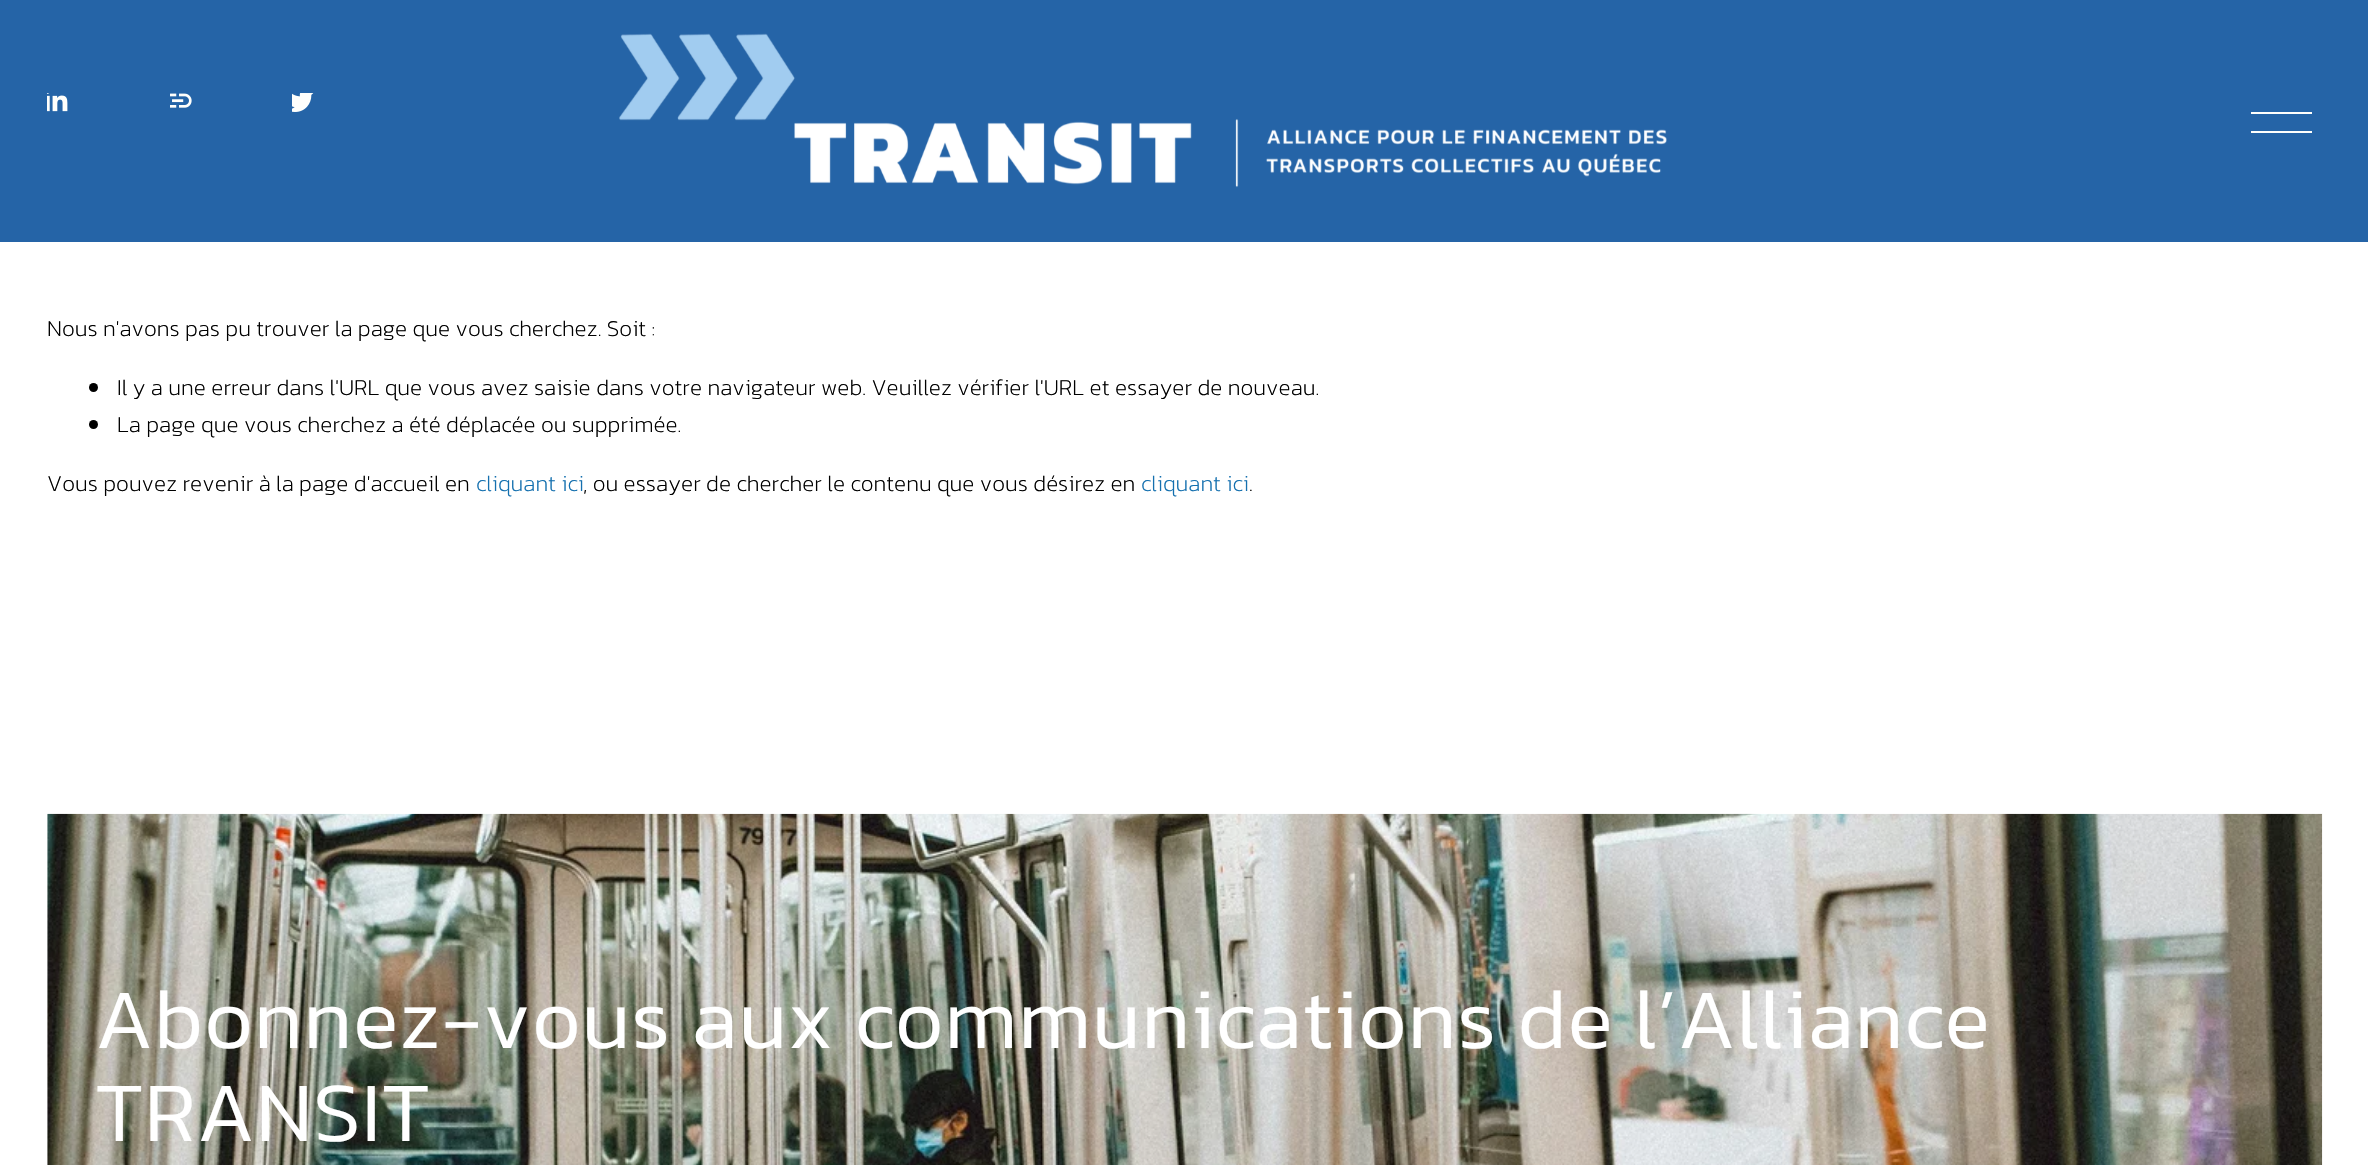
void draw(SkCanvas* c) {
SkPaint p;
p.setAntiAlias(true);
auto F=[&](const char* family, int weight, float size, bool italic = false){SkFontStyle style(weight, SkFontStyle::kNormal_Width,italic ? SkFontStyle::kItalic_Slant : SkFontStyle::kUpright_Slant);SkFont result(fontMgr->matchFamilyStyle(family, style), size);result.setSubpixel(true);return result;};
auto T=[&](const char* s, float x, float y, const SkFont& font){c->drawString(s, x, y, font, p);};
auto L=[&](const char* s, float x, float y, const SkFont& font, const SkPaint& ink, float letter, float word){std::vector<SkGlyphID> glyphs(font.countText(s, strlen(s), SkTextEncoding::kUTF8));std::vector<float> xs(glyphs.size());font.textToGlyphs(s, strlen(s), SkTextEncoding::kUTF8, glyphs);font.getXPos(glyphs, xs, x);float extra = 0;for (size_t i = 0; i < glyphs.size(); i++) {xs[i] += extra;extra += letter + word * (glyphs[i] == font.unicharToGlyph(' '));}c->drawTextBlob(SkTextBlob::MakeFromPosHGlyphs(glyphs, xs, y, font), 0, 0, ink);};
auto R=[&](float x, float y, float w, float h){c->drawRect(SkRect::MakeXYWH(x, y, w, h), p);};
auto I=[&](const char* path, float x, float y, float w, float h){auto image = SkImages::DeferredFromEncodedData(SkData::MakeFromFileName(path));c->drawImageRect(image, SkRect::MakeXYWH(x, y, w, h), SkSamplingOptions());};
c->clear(0xffffffff);
p.setColor(0xff2564a7);
R(0,0,2368,242);
I("1.png",47,93,21,19);
I("2.png",170,93,22,15);
I("3.png",292,93,22,19);
I("4.png",619,33,1048,155);
p.setColor(0xfffffffc);
R(2251,112,61,2);
R(2251,131,61,2);
auto f1 = F("Kanit",200,22.75);
p.setColor(0xff000000);
T("Nous n'avons pas pu trouver la page que vous cherchez. Soit :",47,336,f1);
c->drawCircle(93.5,387.5,4.5,p);
T("Il y a une erreur dans l'URL que vous avez saisie dans votre navigateur web. Veuillez vérifier l'URL et essayer de nouveau.",117,395,f1);
c->drawCircle(93.5,424.5,4.5,p);
T("La page que vous cherchez a été déplacée ou supprimée.",117,432,f1);
T("Vous pouvez revenir à la page d'accueil en",47,491,f1);
p.setColor(0xff1470af);
T("cliquant ici",476,491,f1);
p.setColor(0xff000000);
T(", ou essayer de chercher le contenu que vous désirez en",583,491,f1);
p.setColor(0xff1470af);
T("cliquant ici",1141,491,f1);
p.setColor(0xff000000);
T(".",1249,491,f1);
I("5.png",47,813,2276,352);
auto f2 = F("Kanit",300,85.3);
p.setColor(0xffffffff);
L("Abonnez-vous aux communications de l’Alliance",95,1048,f2,p,.85,0);
L("TRANSIT",95,1141,f2,p,.85,0);
}
